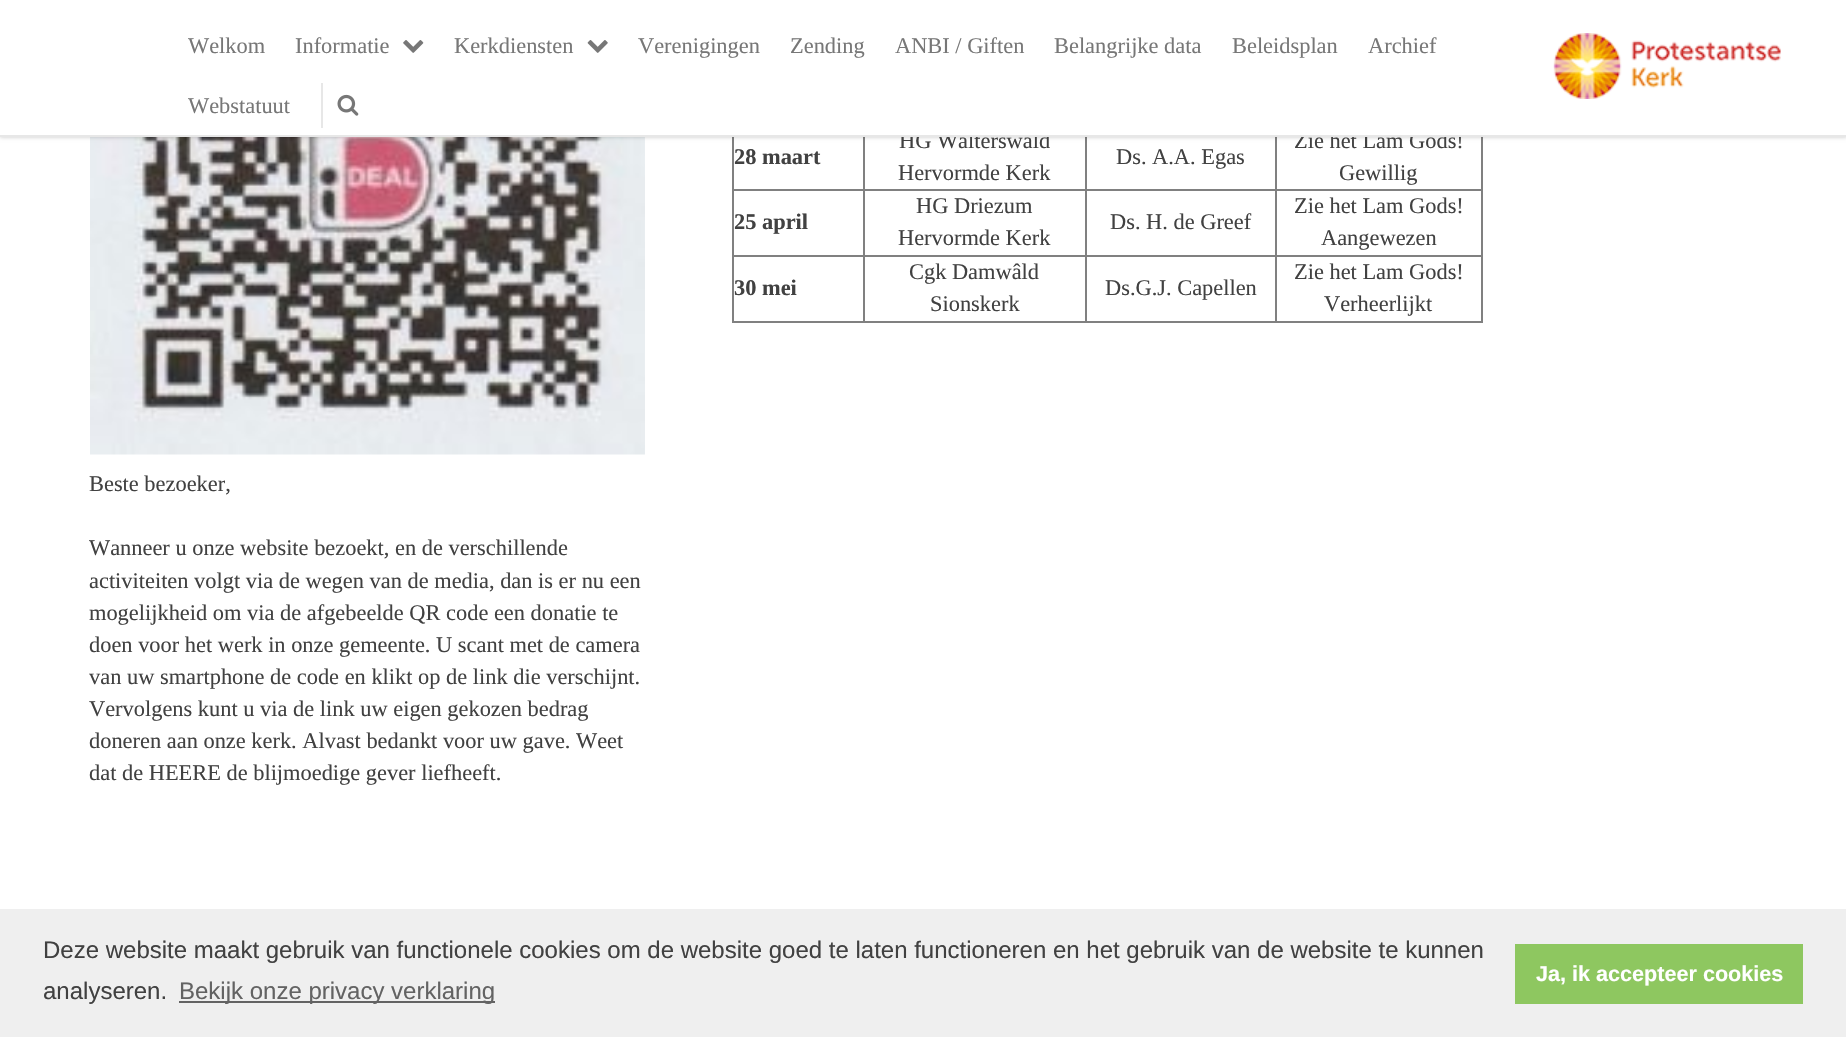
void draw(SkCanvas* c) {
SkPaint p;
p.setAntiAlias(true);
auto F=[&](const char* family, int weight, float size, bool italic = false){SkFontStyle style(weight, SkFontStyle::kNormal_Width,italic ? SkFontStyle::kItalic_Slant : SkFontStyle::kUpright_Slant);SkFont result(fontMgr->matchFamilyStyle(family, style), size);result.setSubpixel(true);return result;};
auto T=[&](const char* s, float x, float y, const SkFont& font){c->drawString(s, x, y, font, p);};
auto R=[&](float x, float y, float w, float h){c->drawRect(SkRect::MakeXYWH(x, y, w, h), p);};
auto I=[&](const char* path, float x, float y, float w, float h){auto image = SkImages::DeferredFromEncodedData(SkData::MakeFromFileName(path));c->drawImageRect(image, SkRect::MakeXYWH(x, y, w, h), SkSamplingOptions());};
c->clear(0xffffffff);
p.setColor(0xff808080);
R(1481,137,2,186);
R(732,321,750,2);
R(732,137,2,186);
R(1275,189,207,2);
R(1275,255,207,2);
R(1275,255,2,68);
R(1085,255,192,2);
R(1275,189,2,68);
R(1085,189,192,2);
R(1085,255,2,68);
R(863,255,223,2);
R(1085,189,2,68);
R(863,189,223,2);
R(863,255,2,68);
R(732,255,132,2);
R(863,189,2,68);
R(732,189,132,2);
R(863,137,2,54);
R(1085,137,2,54);
R(1275,137,2,54);
I("5.png",90,137,555,318);
p.setColor(0x38000000);
p.setMaskFilter(SkMaskFilter::MakeBlur(kNormal_SkBlurStyle, 2));
c->drawRect(SkRect::MakeXYWH(0,0,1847,137),p);
p.setMaskFilter(nullptr);
auto f1 = F("Liberation Serif",400,22.4);
p.setColor(0xff414141);
T("HG Wâlterswâld",899,148,f1);
T("Zie het Lam Gods!",1294,148,f1);
p.setColor(0xffffffff);
R(0,0,1846,135);
p.setColor(0xffe7e7e7);
R(0,135,1846,2);
p.setColor(0xff777777);
T("Welkom",188,53,f1);
T("Informatie",295,53,f1);
I("1.png",403,40,21,13);
T("Kerkdiensten",454,53,f1);
I("2.png",587,40,21,13);
T("Verenigingen",638,53,f1);
T("Zending",790,53,f1);
T("ANBI / Giften",895,53,f1);
T("Belangrijke data",1054,53,f1);
T("Beleidsplan",1232,53,f1);
T("Archief",1368,53,f1);
T("Webstatuut",188,113,f1);
p.setColor(0xffe7e7e7);
R(321,83,2,45);
I("3.png",337,94,22,22);
I("4.png",1553,33,228,66);
auto f2 = F("Liberation Serif",700,22.4);
p.setColor(0xff414141);
T("28 maart",734,164,f2);
T("Hervormde Kerk",898,180,f1);
T("Ds. A.A. Egas",1116,164,f1);
T("Gewillig",1339,180,f1);
T("25 april",734,229,f2);
T("HG Driezum",916,213,f1);
T("Hervormde Kerk",898,245,f1);
T("Ds. H. de Greef",1110,229,f1);
T("Zie het Lam Gods!",1294,213,f1);
T("Aangewezen",1321,245,f1);
T("30 mei",734,295,f2);
T("Cgk Damwâld",909,279,f1);
T("Sionskerk",930,311,f1);
T("Ds.G.J. Capellen",1105,295,f1);
T("Zie het Lam Gods!",1294,279,f1);
T("Verheerlijkt",1324,311,f1);
T("Beste bezoeker,",89,491,f1);
T("Wanneer u onze website bezoekt, en de verschillende",89,555,f1);
T("activiteiten volgt via de wegen van de media, dan is er nu een",89,588,f1);
T("mogelijkheid om via de afgebeelde QR code een donatie te",89,620,f1);
T("doen voor het werk in onze gemeente. U scant met de camera",89,652,f1);
T("van uw smartphone de code en klikt op de link die verschijnt.",89,684,f1);
T("Vervolgens kunt u via de link uw eigen gekozen bedrag",89,716,f1);
T("doneren aan onze kerk. Alvast bedankt voor uw gave. Weet",89,748,f1);
T("dat de HEERE de blijmoedige gever liefheeft.",89,780,f1);
p.setColor(0xffefefef);
R(0,909,1846,128);
auto f3 = F("Liberation Sans",400,24);
p.setColor(0xff414141);
T("Deze website maakt gebruik van functionele cookies om de website goed te laten functioneren en het gebruik van de website te kunnen",43,958,f3);
T("analyseren.",43,999,f3);
p.setColor(0xff636363);
R(179,1001,316,2);
T("Bekijk onze privacy verklaring",179,999,f3);
p.setColor(0xff8ec760);
R(1515,944,288,60);
auto f4 = F("Liberation Sans",700,21.6);
p.setColor(0xffffffff);
T("Ja, ik accepteer cookies",1536,981,f4);
}
